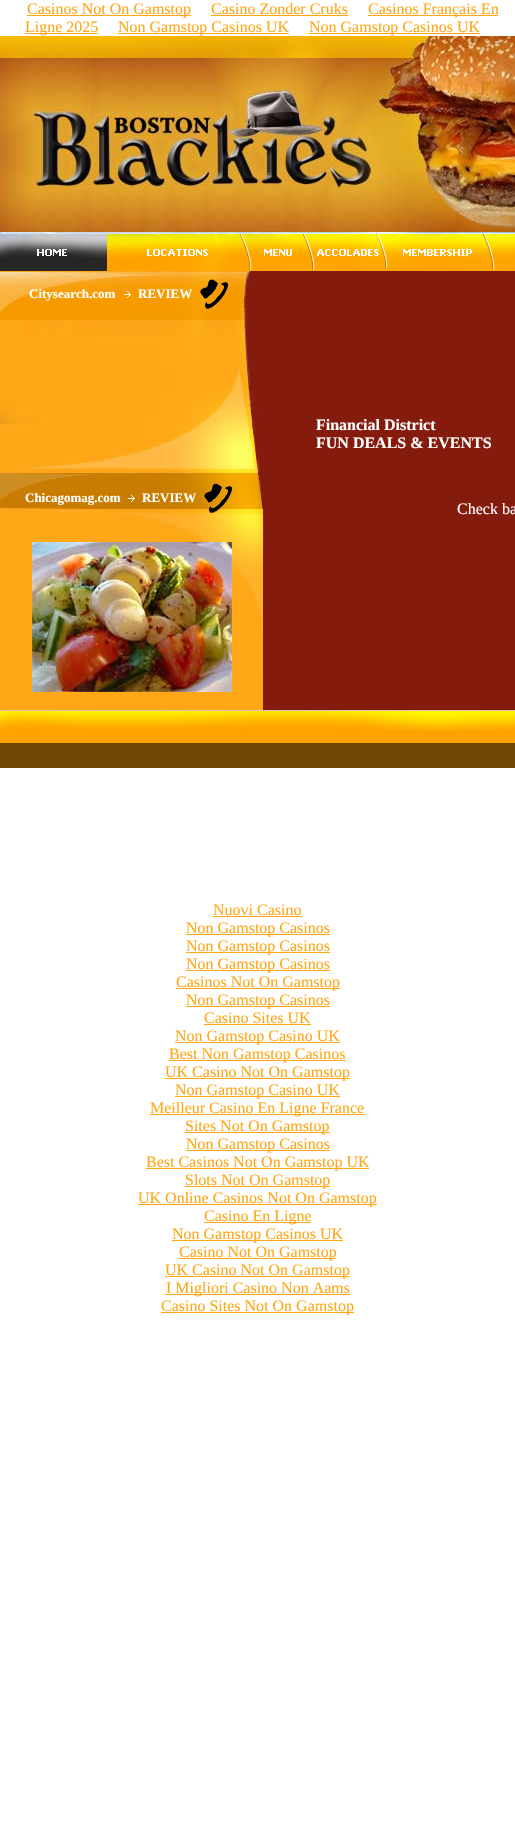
void draw(SkCanvas* c) {
SkPaint p;
p.setAntiAlias(true);
auto F=[&](const char* family, int weight, float size, bool italic = false){SkFontStyle style(weight, SkFontStyle::kNormal_Width,italic ? SkFontStyle::kItalic_Slant : SkFontStyle::kUpright_Slant);SkFont result(fontMgr->matchFamilyStyle(family, style), size);result.setSubpixel(true);return result;};
auto T=[&](const char* s, float x, float y, const SkFont& font){c->drawString(s, x, y, font, p);};
auto R=[&](float x, float y, float w, float h){c->drawRect(SkRect::MakeXYWH(x, y, w, h), p);};
auto I=[&](const char* path, float x, float y, float w, float h){auto image = SkImages::DeferredFromEncodedData(SkData::MakeFromFileName(path));c->drawImageRect(image, SkRect::MakeXYWH(x, y, w, h), SkSamplingOptions());};
c->clear(0xffffffff);
p.setColor(0xffffa717);
R(27,15,164,1);
auto f1 = F("Liberation Serif",400,16);
T("Casinos Not On Gamstop",27,14,f1);
T("Casino Zonder Cruks",211,14,f1);
R(211,15,137,1);
R(368,15,130,1);
T("Casinos Français En",368,14,f1);
R(25,33,73,1);
T("Ligne 2025",25,32,f1);
R(118,33,171,1);
T("Non Gamstop Casinos UK",118,32,f1);
R(309,33,171,1);
T("Non Gamstop Casinos UK",309,32,f1);
I("1.png",0,36,264,22);
I("2.png",264,36,251,22);
I("3.png",0,58,264,174);
I("4.png",264,58,251,174);
I("5.png",0,232,107,39);
I("6.png",107,232,142,39);
I("7.png",249,232,61,39);
I("8.png",310,232,75,39);
I("9.png",385,232,106,39);
I("10.png",491,232,24,39);
I("11.png",0,271,264,201);
auto f2 = F("Liberation Serif",700,13);
p.setColor(0xfffefefe);
T("Citysearch.com",29,298,f2);
I("12.png",124,291,7,7);
T("REVIEW",138,298,f2);
I("13.png",200,279,28,30);
p.setColor(0xff851b0d);
R(264,271,251,439);
auto f3 = F("Liberation Serif",700,16);
p.setColor(0xfffefefe);
T("Financial District",316,430,f3);
T("FUN DEALS & EVENTS",316,448,f3);
T("Check ba",457,514,f1);
I("14.png",0,472,264,238);
T("Chicagomag.com",25,502,f2);
I("15.png",128,495,7,7);
T("REVIEW",142,502,f2);
I("16.png",204,483,28,30);
I("17.png",32,542,200,150);
I("18.png",0,710,515,33);
p.setColor(0xff704905);
R(0,743,515,25);
p.setColor(0xffffa717);
T("Nuovi Casino",213,915,f1);
R(213,916,89,1);
R(186,934,144,1);
T("Non Gamstop Casinos",186,933,f1);
R(186,952,144,1);
T("Non Gamstop Casinos",186,951,f1);
R(186,970,144,1);
T("Non Gamstop Casinos",186,969,f1);
R(176,988,164,1);
T("Casinos Not On Gamstop",176,987,f1);
R(186,1006,144,1);
T("Non Gamstop Casinos",186,1005,f1);
T("Casino Sites UK",204,1023,f1);
R(204,1024,107,1);
R(175,1042,165,1);
T("Non Gamstop Casino UK",175,1041,f1);
R(169,1060,177,1);
T("Best Non Gamstop Casinos",169,1059,f1);
R(165,1078,185,1);
T("UK Casino Not On Gamstop",165,1077,f1);
R(175,1096,165,1);
T("Non Gamstop Casino UK",175,1095,f1);
R(150,1114,215,1);
T("Meilleur Casino En Ligne France",150,1113,f1);
R(185,1132,145,1);
T("Sites Not On Gamstop",185,1131,f1);
R(186,1150,144,1);
T("Non Gamstop Casinos",186,1149,f1);
R(146,1168,223,1);
T("Best Casinos Not On Gamstop UK",146,1167,f1);
R(185,1186,145,1);
T("Slots Not On Gamstop",185,1185,f1);
R(138,1204,239,1);
T("UK Online Casinos Not On Gamstop",138,1203,f1);
R(204,1222,107,1);
T("Casino En Ligne",204,1221,f1);
R(172,1240,171,1);
T("Non Gamstop Casinos UK",172,1239,f1);
R(179,1258,157,1);
T("Casino Not On Gamstop",179,1257,f1);
R(165,1276,185,1);
T("UK Casino Not On Gamstop",165,1275,f1);
R(166,1294,184,1);
T("I Migliori Casino Non Aams",166,1293,f1);
R(161,1312,193,1);
T("Casino Sites Not On Gamstop",161,1311,f1);
}
